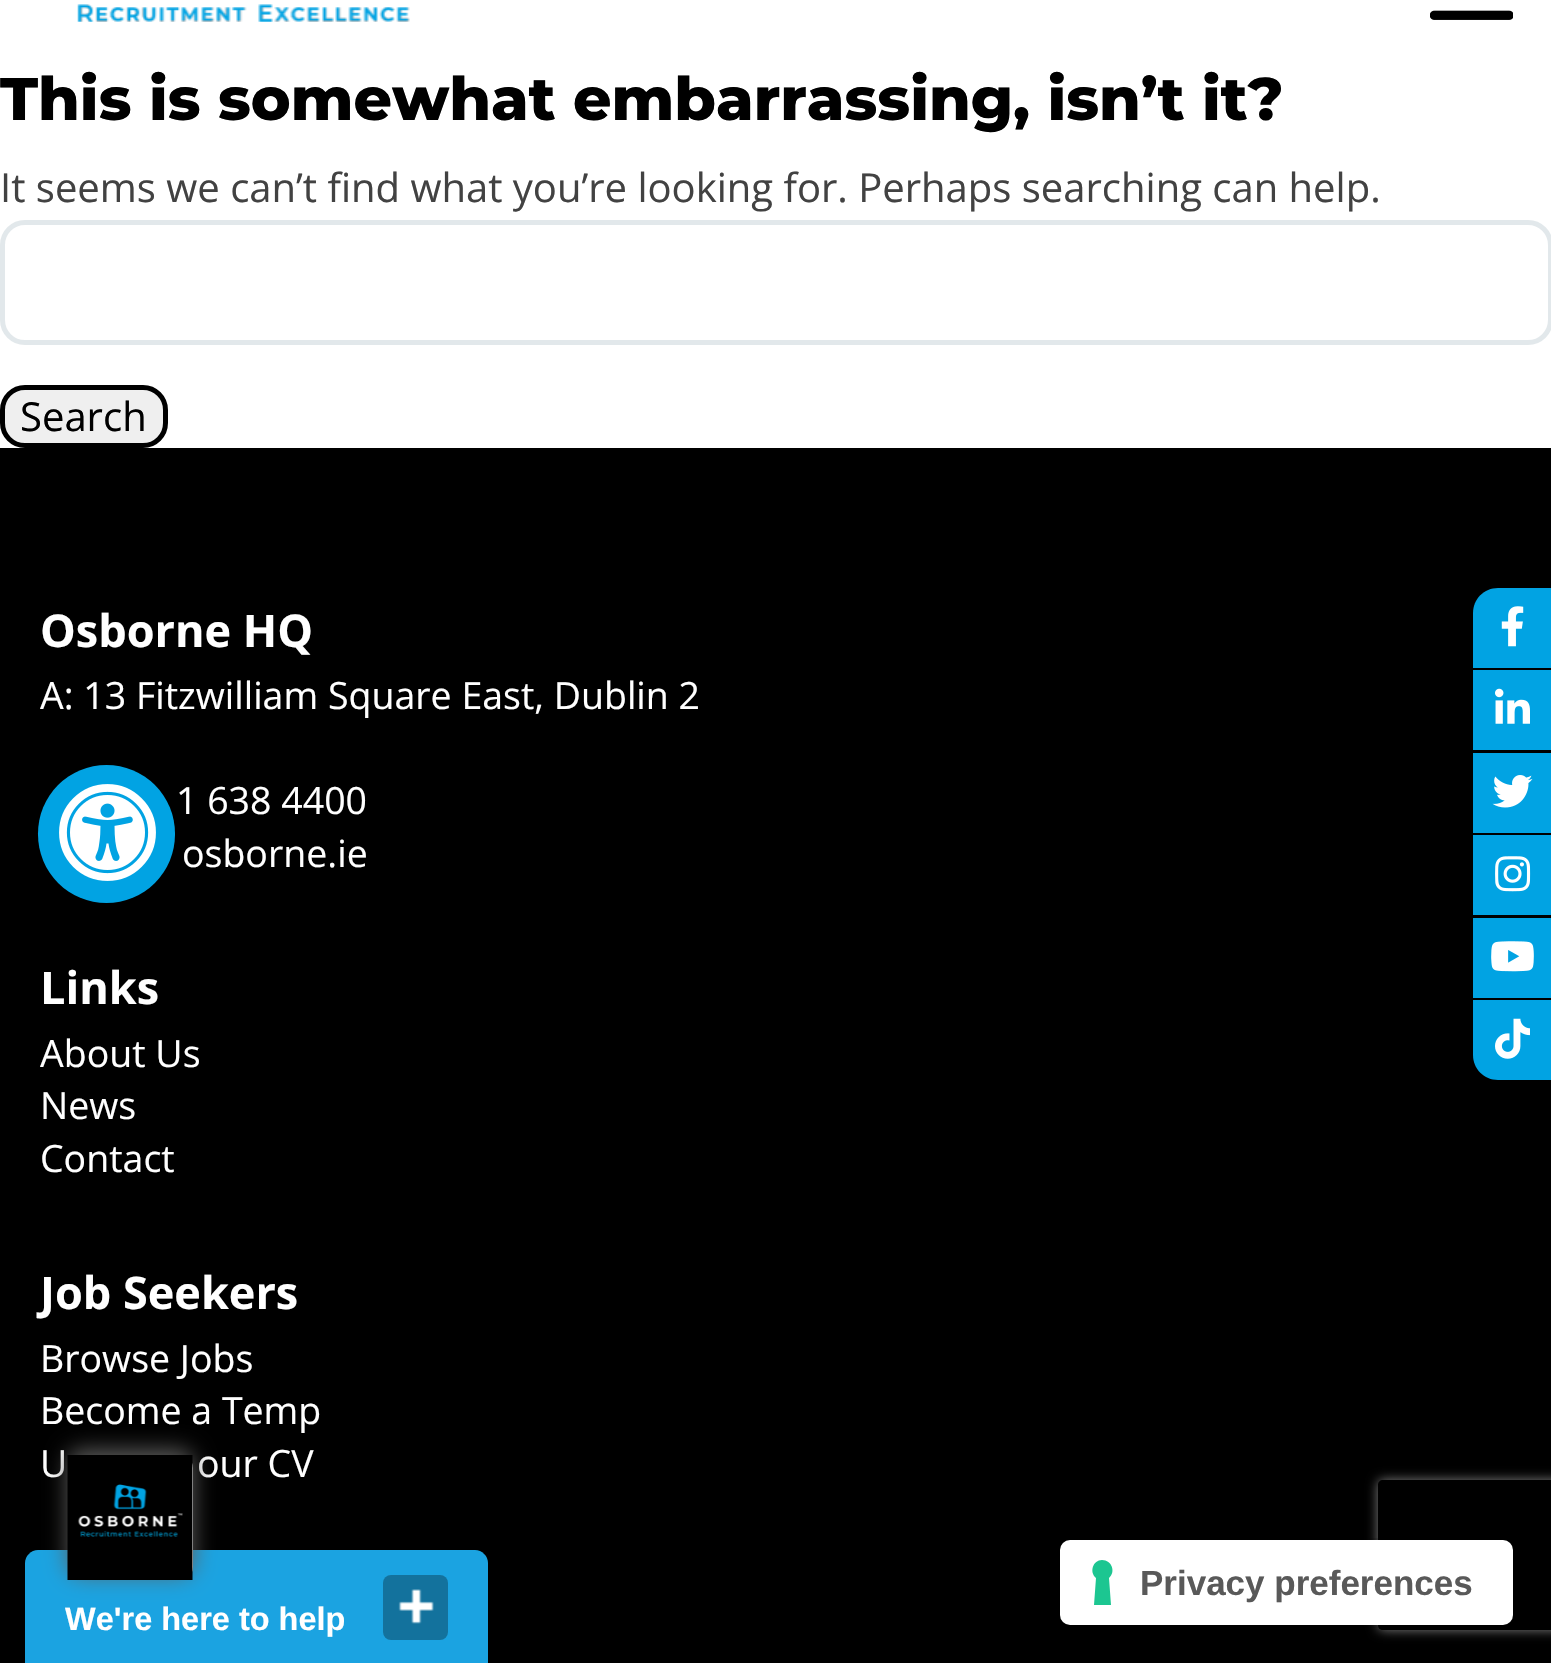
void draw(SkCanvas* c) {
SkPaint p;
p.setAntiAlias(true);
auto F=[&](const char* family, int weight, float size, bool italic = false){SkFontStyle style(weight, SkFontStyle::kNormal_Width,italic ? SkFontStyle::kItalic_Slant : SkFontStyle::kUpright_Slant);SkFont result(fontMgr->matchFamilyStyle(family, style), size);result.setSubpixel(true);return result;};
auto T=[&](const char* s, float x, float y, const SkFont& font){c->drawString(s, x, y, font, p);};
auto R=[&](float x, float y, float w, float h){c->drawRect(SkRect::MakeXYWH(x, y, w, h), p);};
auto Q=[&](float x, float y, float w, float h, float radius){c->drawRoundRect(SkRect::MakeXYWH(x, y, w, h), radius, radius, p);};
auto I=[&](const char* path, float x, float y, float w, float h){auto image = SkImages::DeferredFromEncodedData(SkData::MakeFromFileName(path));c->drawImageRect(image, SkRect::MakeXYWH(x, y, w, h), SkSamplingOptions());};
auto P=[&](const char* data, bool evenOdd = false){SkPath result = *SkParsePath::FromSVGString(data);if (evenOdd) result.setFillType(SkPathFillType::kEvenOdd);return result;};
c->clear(0xffffffff);
I("1.png",77,4,333,18);
I("2.png",1430,10,83,10);
auto f1 = F("Montserrat",800,60);
p.setColor(0xff000000);
T("This is somewhat embarrassing, isn’t it?",0,120,f1);
auto f2 = F("Open Sans",400,40);
p.setColor(0xff424242);
T("It seems we can’t find what you’re looking for. Perhaps searching can help.",0,202,f2);
p.setStroke(true);
p.setStrokeWidth(5);
p.setColor(0xffe2e8eb);
c->drawRoundRect(SkRect::MakeXYWH(2.5,222.5,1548,120),22.5,22.5,p);
p.setStroke(false);
p.setColor(0xffefefef);
c->drawRoundRect(SkRect::MakeXYWH(2.5,387.5,163,58),22.5,22.5,p);
p.setStroke(true);
p.setColor(0xff000000);
c->drawRoundRect(SkRect::MakeXYWH(2.5,387.5,163,58),22.5,22.5,p);
p.setStroke(false);
T("Search",20,431,f2);
R(0,448,1551,1215);
auto f3 = F("Open Sans",700,45);
p.setColor(0xffffffff);
T("Osborne HQ",40,647,f3);
auto f4 = F("Open Sans",400,37.5);
T("A: 13 Fitzwilliam Square East, Dublin 2",40,709,f4);
T("1 638 4400",176,814,f4);
T("osborne.ie",182,867,f4);
T("Links",40,1004,f3);
T("About Us",40,1067,f4);
T("News",40,1119,f4);
T("Contact",40,1172,f4);
T("Job Seekers",40,1309,f3);
T("Browse Jobs",40,1372,f4);
T("Become a Temp",40,1424,f4);
T("U",40,1477,f4);
T("our CV",197,1477,f4);
p.setColor(0xff01a3e3);
c->drawPath(P("M1498 588h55v80h-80v-55c0-14 11-25 25-25z"),p);
I("3.png",1501,606,23,41);
R(1473,670,78,80);
I("4.png",1495,688,35,36);
R(1473,753,78,80);
I("5.png",1492,775,41,33);
R(1473,835,78,80);
I("6.png",1495,856,36,36);
R(1473,918,78,80);
I("7.png",1491,941,43,31);
c->drawPath(P("M1473 1000h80v80h-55c-14 0-25-11-25-25z"),p);
I("8.png",1495,1018,35,41);
Q(38,765,137,138,68.5);
I("9.png",59,784,97,97);
c->save();
c->clipPath(P("M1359 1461h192v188h-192zm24 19h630c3 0 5 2 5 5v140c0 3-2 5-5 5h-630c-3 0-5-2-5-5v-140c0-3 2-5 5-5z",true),true);
p.setColor(0xff808080);
p.setMaskFilter(SkMaskFilter::MakeBlur(kNormal_SkBlurStyle, 6));
c->drawRoundRect(SkRect::MakeXYWH(1378,1480,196,150),5,5,p);
p.setMaskFilter(nullptr);
c->restore();
p.setStroke(true);
p.setStrokeWidth(3);
p.setColor(0x26000000);
c->drawRoundRect(SkRect::MakeXYWH(1059.5,1539.5,454,87),11.5,11.5,p);
p.setStroke(false);
p.setColor(0xffffffff);
Q(1060,1540,453,85,10);
p.setColor(0xff1cc691);
c->drawPath(P("M1102 1560c10 0 14 12 7 18l2 27h-17l2-27c-7-6-3-18 6-18z",true),p);
auto f5 = F("Liberation Sans",700,35);
p.setColor(0xff595959);
T("Privacy preferences",1140,1595,f5);
p.setColor(0xff1ba3e1);
c->drawPath(P("M38 1550h437c7 0 13 6 13 13v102h-463v-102c0-7 6-13 13-13z"),p);
p.setColor(0xff5f5f5e);
p.setMaskFilter(SkMaskFilter::MakeBlur(kNormal_SkBlurStyle, 11));
c->drawRoundRect(SkRect::MakeXYWH(68,1450,125,125),13,13,p);
p.setMaskFilter(nullptr);
p.setColor(0xffffffff);
Q(68,1455,125,125,13);
I("10.png",67,1455,126,125);
p.setColor(0xff13729d);
Q(383,1575,65,65,8);
I("11.png",398,1589,36,35);
auto f6 = F("Liberation Sans",700,32.5);
p.setColor(0xffffffff);
T("We're here to help",65,1630,f6);
}
